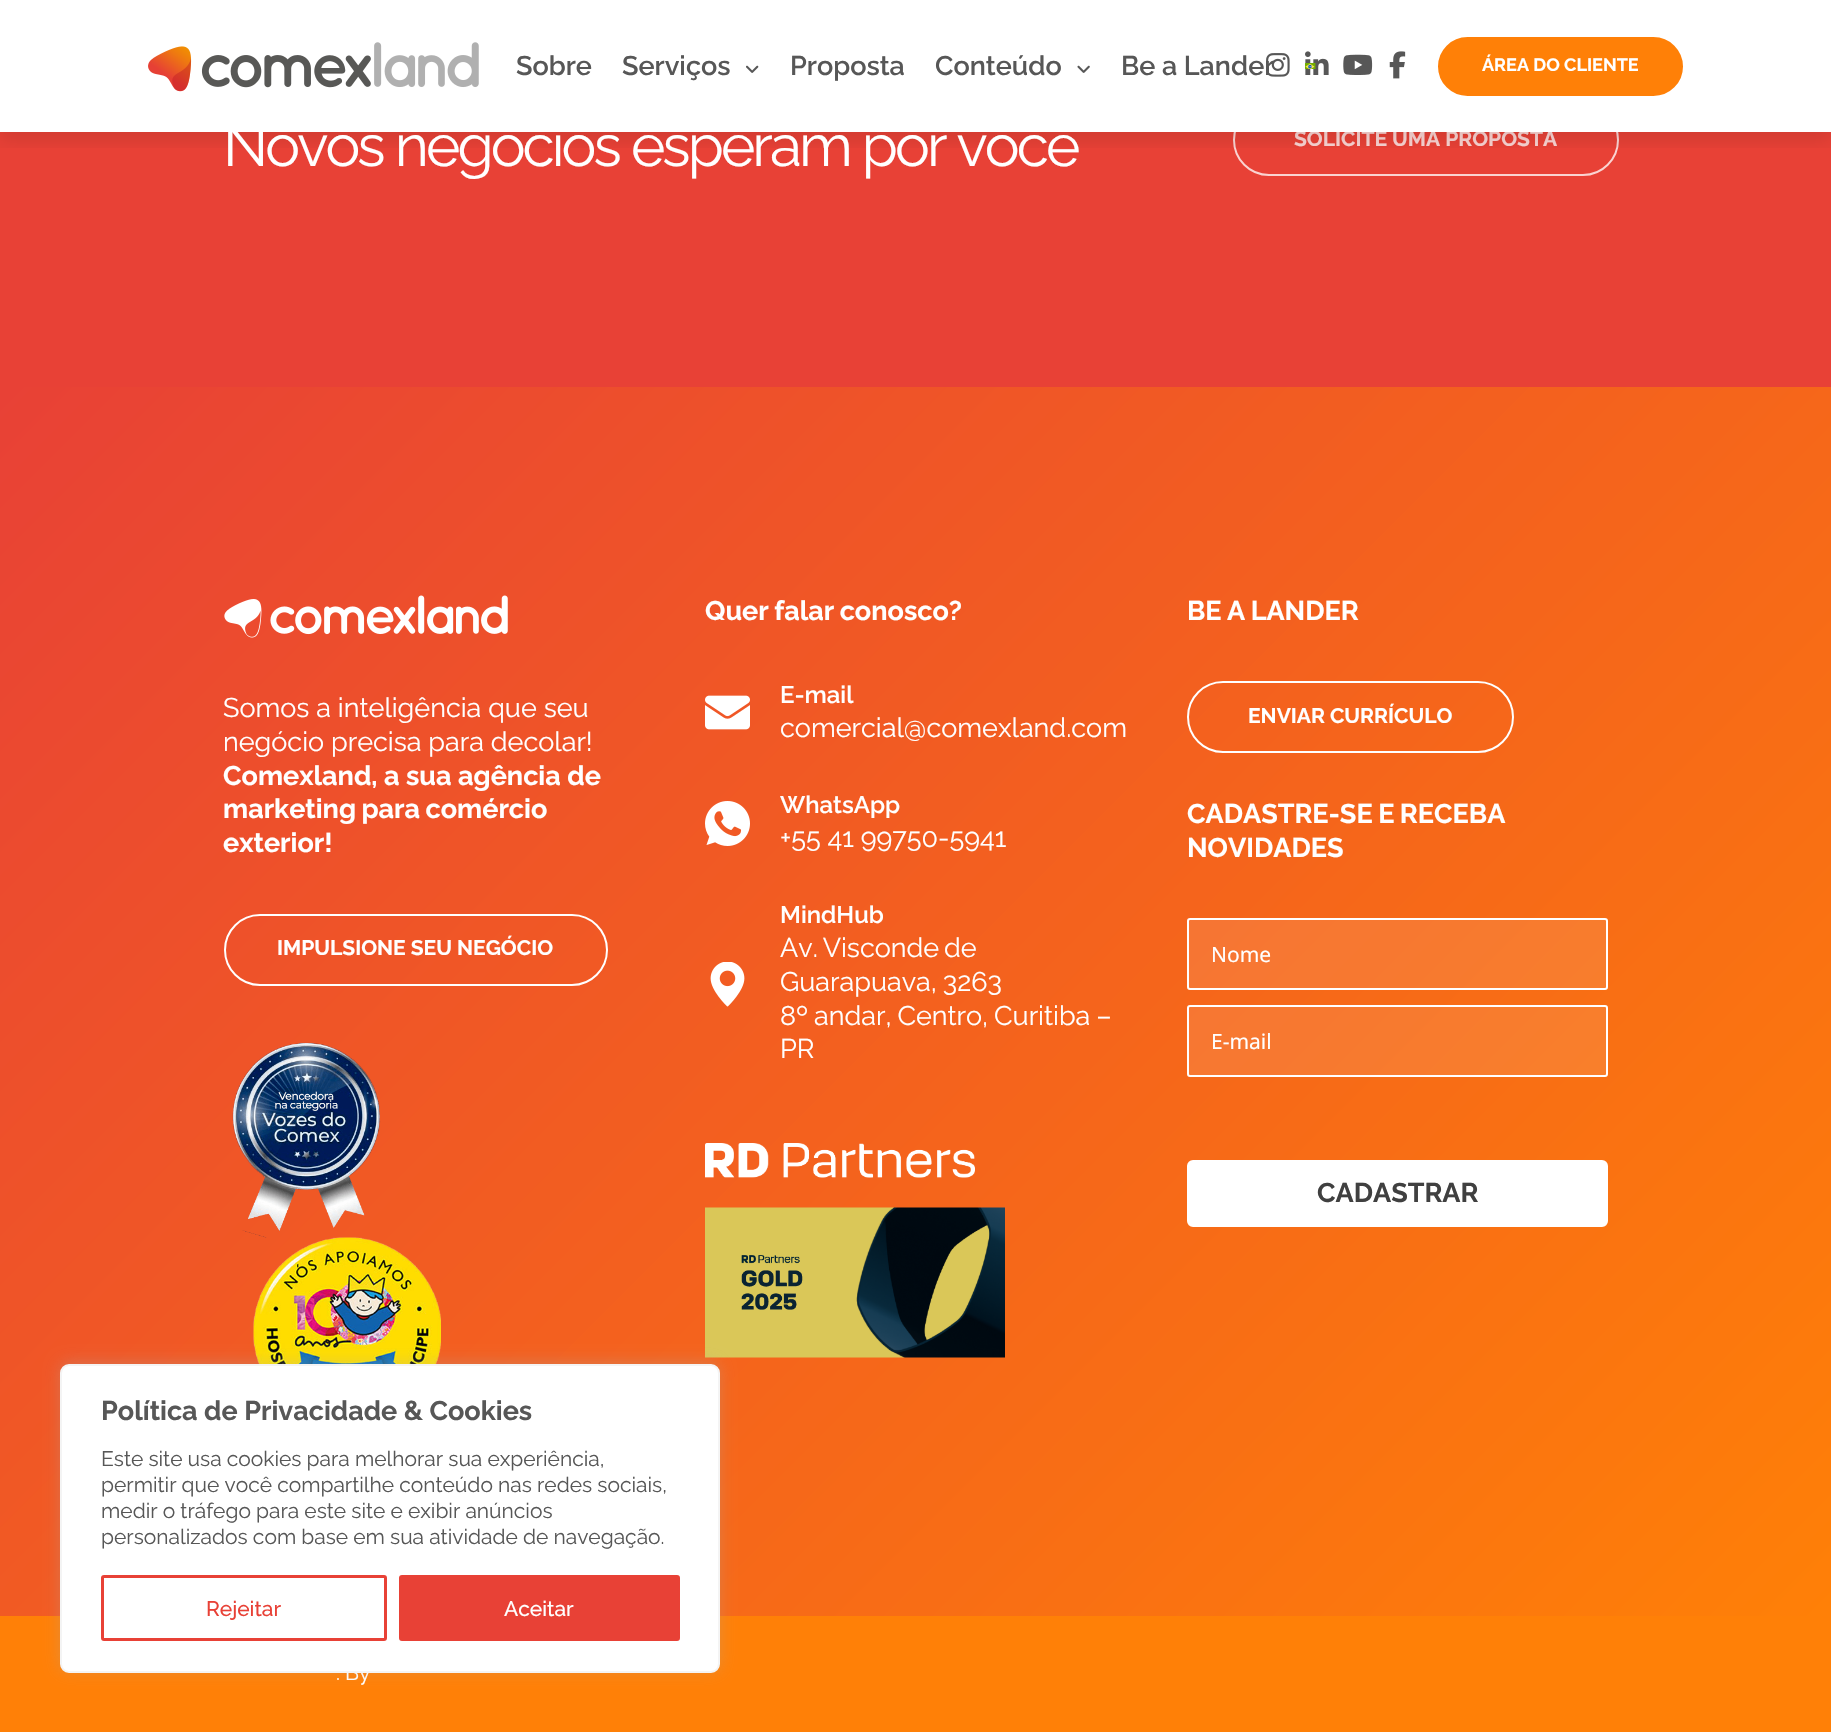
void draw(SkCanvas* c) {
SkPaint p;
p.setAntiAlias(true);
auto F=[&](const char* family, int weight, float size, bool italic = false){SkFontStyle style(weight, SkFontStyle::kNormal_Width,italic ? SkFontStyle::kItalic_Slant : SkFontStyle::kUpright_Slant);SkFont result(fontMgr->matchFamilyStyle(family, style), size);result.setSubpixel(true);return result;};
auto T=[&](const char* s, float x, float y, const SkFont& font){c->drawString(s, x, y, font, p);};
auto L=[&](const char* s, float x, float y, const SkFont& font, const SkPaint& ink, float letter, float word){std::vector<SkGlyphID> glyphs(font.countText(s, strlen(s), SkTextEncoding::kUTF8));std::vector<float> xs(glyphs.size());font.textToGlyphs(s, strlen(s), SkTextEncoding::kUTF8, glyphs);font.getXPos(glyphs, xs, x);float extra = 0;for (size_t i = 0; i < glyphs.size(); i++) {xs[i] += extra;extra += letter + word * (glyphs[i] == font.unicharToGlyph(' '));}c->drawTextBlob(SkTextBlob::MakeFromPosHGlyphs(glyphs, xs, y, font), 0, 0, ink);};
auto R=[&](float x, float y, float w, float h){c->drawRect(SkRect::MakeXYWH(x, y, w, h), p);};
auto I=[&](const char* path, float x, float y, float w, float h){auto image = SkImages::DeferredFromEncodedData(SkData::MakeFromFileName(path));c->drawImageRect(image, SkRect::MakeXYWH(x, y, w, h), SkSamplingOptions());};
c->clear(0xffff8007);
p.setColor(0xffe84136);
R(0,132,1831,255);
p.setStroke(true);
p.setStrokeWidth(2);
p.setColor(0xfffad3d1);
c->drawRoundRect(SkRect::MakeXYWH(1234,105,384,70),35,35,p);
auto f1 = F("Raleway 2",100,21);
p.setStroke(false);
T("SOLICITE UMA PROPOSTA",1294,146,f1);
p.setColor(0xffffffff);
R(0,0,1831,132);
c->save();
c->clipRect(SkRect::MakeXYWH(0,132,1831,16));
p.setColor(0x1a000000);
p.setMaskFilter(SkMaskFilter::MakeBlur(kNormal_SkBlurStyle, 9));
c->drawRect(SkRect::MakeXYWH(0,8,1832,132),p);
p.setMaskFilter(nullptr);
c->restore();
I("1.png",148,42,331,50);
auto f2 = F("Raleway",600,27);
p.setColor(0xff575757);
T("Sobre",516,75,f2);
T("Serviços",622,75,f2);
I("2.png",746,65,13,8);
T("Proposta",790,75,f2);
T("Conteúdo",935,75,f2);
I("3.png",1077,65,13,8);
I("5.png",1266,53,24,24);
T("Be a Lander",1121,75,f2);
I("6.png",1305,51,24,24);
I("4.png",1305,63,11,6);
I("7.png",1343,54,30,21);
I("8.png",1389,51,17,28);
p.setColor(0xffff8007);
c->drawRoundRect(SkRect::MakeXYWH(1437,36,247,61),30.5,30.5,p);
p.setStroke(true);
p.setColor(0xffffffff);
c->drawRoundRect(SkRect::MakeXYWH(1437,36,247,61),30.5,30.5,p);
auto f3 = F("Raleway 2",100,18);
p.setStroke(false);
T("ÁREA DO CLIENTE",1482,71,f3);
auto f4 = F("Raleway",100,58.5);
L("Novos negócios esperam por você",223,166,f4,p,-2.9,0);
{
const SkColor colors[] = {0xffff8007,0xffe84136};
const float stops[] = {0,1};
const SkPoint ends[] = {{1681,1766}, {151,236}};
p.setShader(SkGradientShader::MakeLinear(ends, colors, stops, 2, SkTileMode::kClamp));
p.setAlpha(255);
}
R(0,387,1831,1229);
I("9.png",224,595,284,43);
auto f5 = F("Raleway",100,27);
p.setShader(nullptr);
p.setColor(0xffffffff);
T("Somos a inteligência que seu",223,717,f5);
T("negócio precisa para decolar!",223,751,f5);
auto f6 = F("Raleway 2",100,27);
T("Comexland, a sua agência de",223,785,f6);
L("marketing para comércio",223,818,f6,p,0,-1);
T("exterior!",223,852,f6);
p.setStroke(true);
c->drawRoundRect(SkRect::MakeXYWH(225,915,382,70),35,35,p);
p.setStroke(false);
T("IMPULSIONE SEU NEGÓCIO",277,955,f1);
I("10.png",232,1042,149,196);
I("11.png",253,1237,188,127);
L("Quer falar conosco?",705,620,f6,p,0,-1);
I("12.png",705,695,45,35);
auto f7 = F("Raleway",600,24);
T("E-mail",780,703,f7);
T("comercial@comexland.com",780,737,f5);
I("13.png",705,801,45,45);
T("WhatsApp",780,813,f7);
T("+55 41 99750-5941",780,847,f5);
I("14.png",710,962,35,45);
T("MindHub",780,923,f7);
L("Av. Visconde de",780,957,f5,p,0,-2);
L("Guarapuava, 3263",780,991,f5,p,0,-1);
L("8º andar, Centro, Curitiba –",780,1025,f5,p,0,-1);
T("PR",780,1058,f5);
I("15.png",705,1143,270,35);
I("16.png",705,1207,300,151);
L("BE A LANDER",1187,620,f6,p,0,-1);
p.setStroke(true);
c->drawRoundRect(SkRect::MakeXYWH(1188,682,325,70),35,35,p);
p.setStroke(false);
T("ENVIAR CURRÍCULO",1248,723,f1);
L("CADASTRE-SE E RECEBA",1187,823,f6,p,0,-1);
T("NOVIDADES",1187,857,f6);
p.setColor(0x1affffff);
c->drawRoundRect(SkRect::MakeXYWH(1188,919,419,70),2,2,p);
p.setStroke(true);
p.setColor(0xffffffff);
c->drawRoundRect(SkRect::MakeXYWH(1188,919,419,70),2,2,p);
auto f8 = F("Noto Sans",400,21);
p.setStroke(false);
T("Nome",1211,962,f8);
p.setColor(0x1affffff);
c->drawRoundRect(SkRect::MakeXYWH(1188,1006,419,70),2,2,p);
p.setStroke(true);
p.setColor(0xffffffff);
c->drawRoundRect(SkRect::MakeXYWH(1188,1006,419,70),2,2,p);
p.setStroke(false);
T("E-mail",1211,1049,f8);
c->drawRoundRect(SkRect::MakeXYWH(1188,1161,419,65),5,5,p);
p.setStroke(true);
c->drawRoundRect(SkRect::MakeXYWH(1188,1161,419,65),5,5,p);
p.setStroke(false);
p.setColor(0xff404040);
T("CADASTRAR",1317,1202,f6);
auto f9 = F("Raleway",100,21);
p.setColor(0xffffffff);
L(". By",336,1680,f9,p,0,-.25);
p.setColor(0x4dacabab);
p.setMaskFilter(SkMaskFilter::MakeBlur(kNormal_SkBlurStyle, 7.5));
c->drawRoundRect(SkRect::MakeXYWH(60,1362,660,309),9,9,p);
p.setMaskFilter(nullptr);
p.setColor(0xffffffff);
c->drawRoundRect(SkRect::MakeXYWH(61,1365,658,307),8,8,p);
p.setStroke(true);
p.setColor(0xfff4f4f4);
c->drawRoundRect(SkRect::MakeXYWH(61,1365,658,307),8,8,p);
p.setStroke(false);
p.setColor(0xff575757);
T("Política de Privacidade & Cookies",101,1420,f6);
L("Este site usa cookies para melhorar sua experiência,",101,1466,f9,p,0,-.25);
L("permitir que você compartilhe conteúdo nas redes sociais,",101,1492,f9,p,0,-.25);
L("medir o tráfego para este site e exibir anúncios",101,1518,f9,p,0,-.25);
L("personalizados com base em sua atividade de navegação.",101,1544,f9,p,0,-.25);
p.setStroke(true);
p.setStrokeWidth(3);
p.setColor(0xffe84136);
c->drawRoundRect(SkRect::MakeXYWH(102.5,1576.5,283,63),1.5,1.5,p);
auto f10 = F("Raleway",500,21);
p.setStroke(false);
T("Rejeitar",206,1616,f10);
c->drawRoundRect(SkRect::MakeXYWH(400.5,1576.5,278,63),1.5,1.5,p);
p.setStroke(true);
c->drawRoundRect(SkRect::MakeXYWH(400.5,1576.5,278,63),1.5,1.5,p);
p.setStroke(false);
p.setColor(0xffffffff);
T("Aceitar",504,1616,f10);
}
